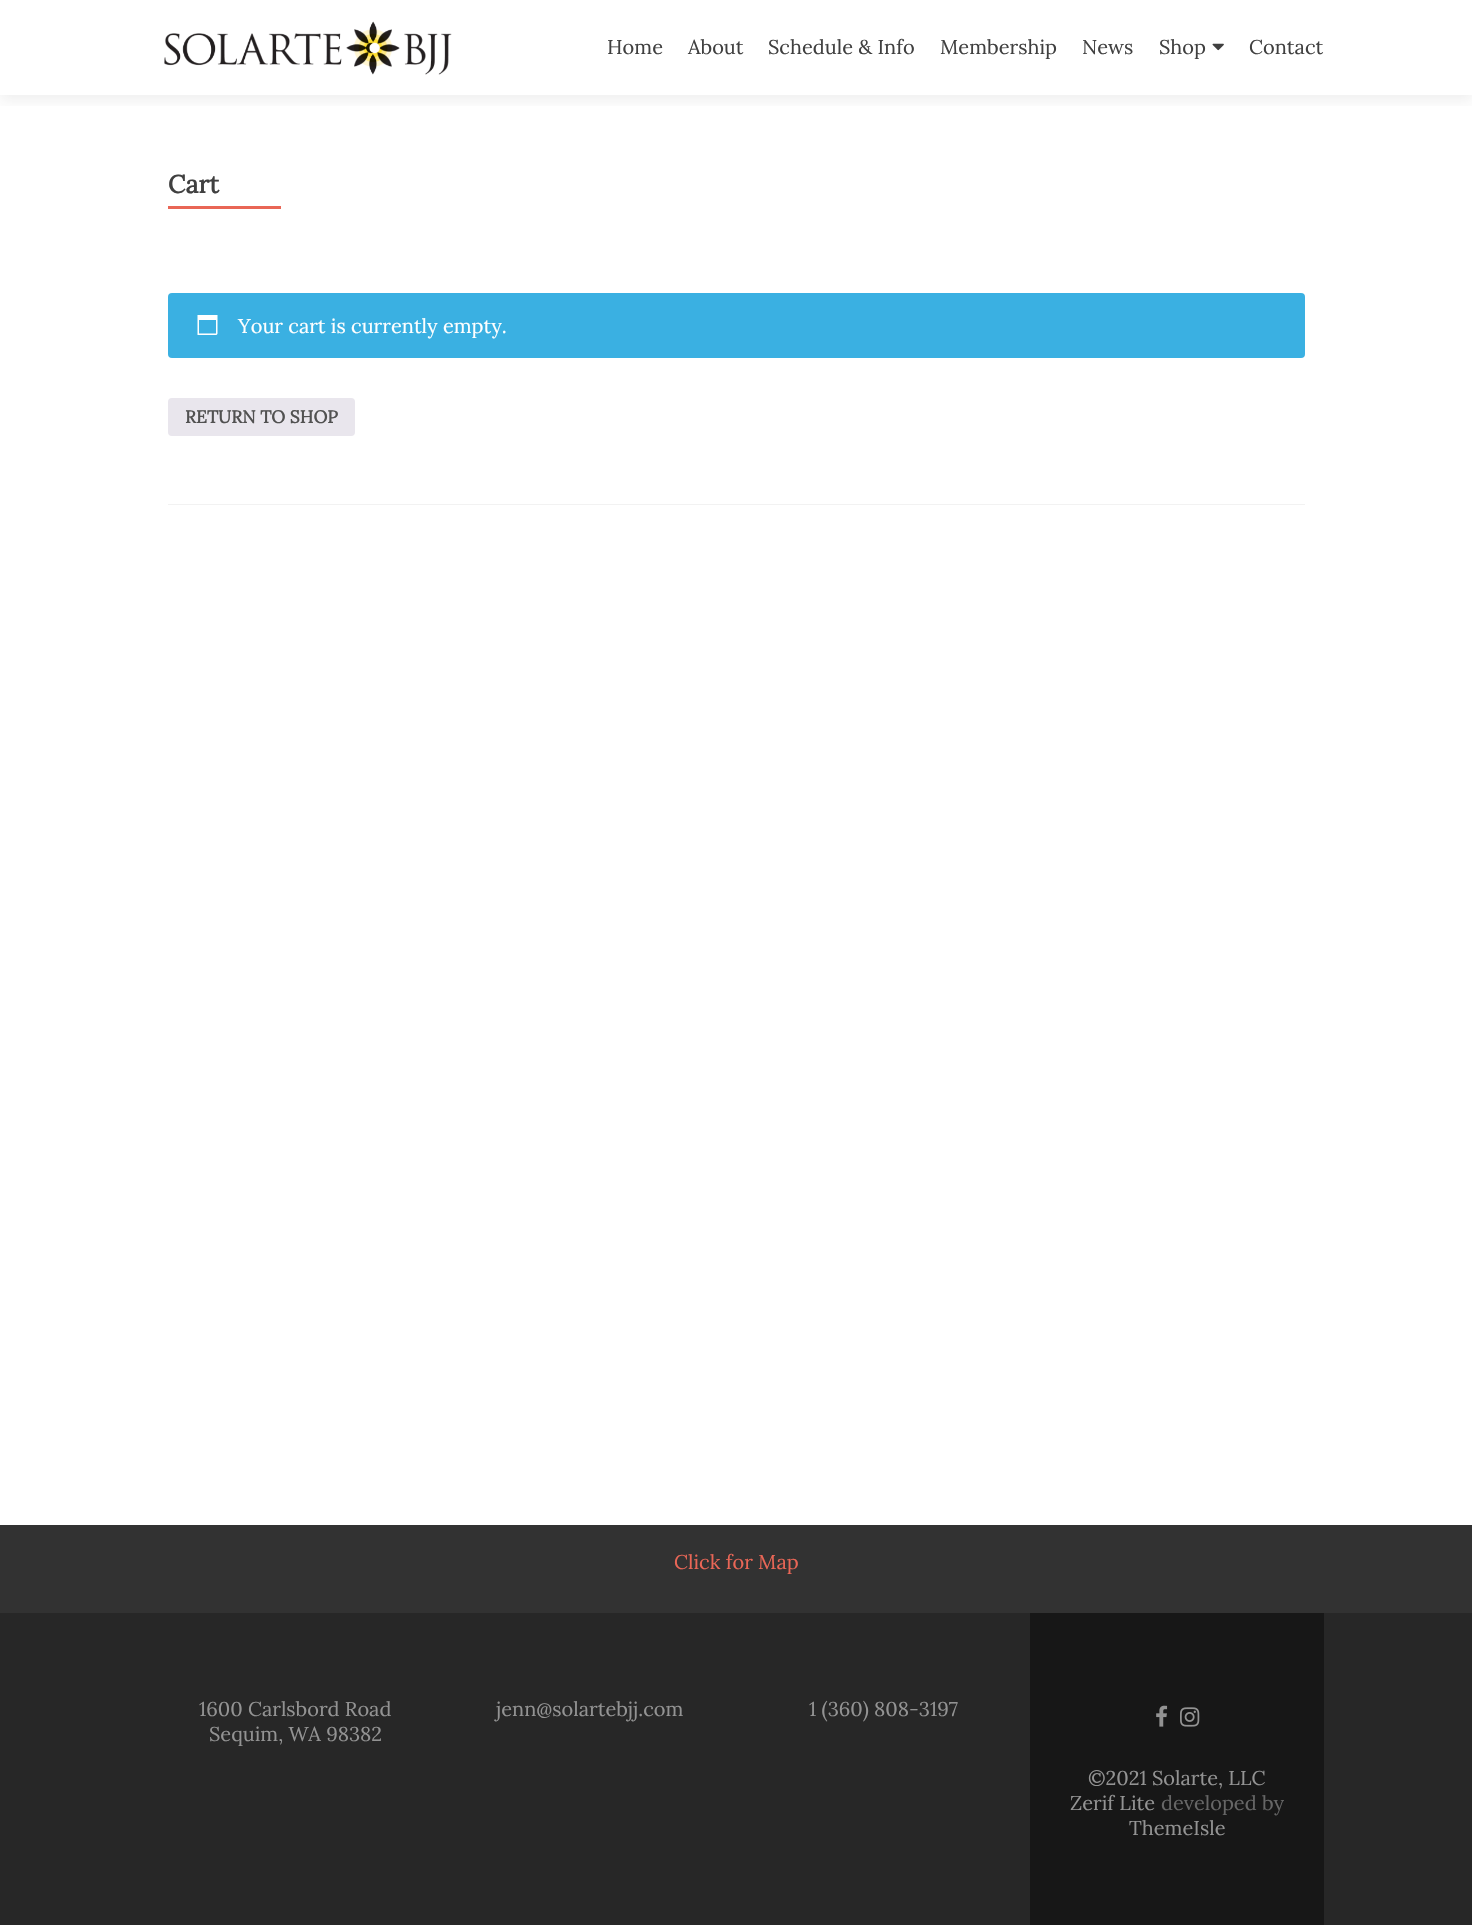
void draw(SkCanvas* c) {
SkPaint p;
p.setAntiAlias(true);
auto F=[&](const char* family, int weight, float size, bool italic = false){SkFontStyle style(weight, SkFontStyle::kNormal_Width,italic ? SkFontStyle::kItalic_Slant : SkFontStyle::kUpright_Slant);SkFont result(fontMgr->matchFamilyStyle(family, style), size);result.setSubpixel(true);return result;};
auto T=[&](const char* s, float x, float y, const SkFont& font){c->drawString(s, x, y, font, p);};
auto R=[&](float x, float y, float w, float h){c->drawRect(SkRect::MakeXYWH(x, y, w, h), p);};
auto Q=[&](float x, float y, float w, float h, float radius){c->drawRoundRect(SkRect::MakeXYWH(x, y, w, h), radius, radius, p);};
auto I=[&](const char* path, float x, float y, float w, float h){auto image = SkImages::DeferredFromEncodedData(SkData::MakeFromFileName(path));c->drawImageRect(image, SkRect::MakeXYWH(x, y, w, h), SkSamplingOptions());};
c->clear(0xffffffff);
c->save();
c->clipRect(SkRect::MakeXYWH(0,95,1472,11));
p.setColor(0x14323232);
p.setMaskFilter(SkMaskFilter::MakeBlur(kNormal_SkBlurStyle, 7));
c->drawRect(SkRect::MakeXYWH(0,6,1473,95),p);
p.setMaskFilter(nullptr);
c->restore();
I("1.png",164,21,288,54);
auto f1 = F("Lora",400,20);
p.setColor(0xff404040);
T("Home",607,54,f1);
T("About",688,54,f1);
T("Schedule & Info",768,54,f1);
T("Membership",940,54,f1);
T("News",1082,54,f1);
T("Shop",1159,54,f1);
I("2.png",1212,43,12,8);
T("Contact",1249,54,f1);
p.setColor(0xfff2f2f2);
R(168,504,1137,1);
auto f2 = F("Lora",700,25);
p.setColor(0xff404040);
T("Cart",168,193,f2);
p.setColor(0xffe96656);
R(168,206,113,3);
p.setColor(0xff3ab0e2);
Q(168,293,1137,65,4);
I("3.png",197,315,21,20);
p.setColor(0xffffffff);
T("Your cart is currently empty.",238,333,f1);
p.setColor(0xffe9e6ed);
Q(168,398,187,38,4);
auto f3 = F("Lora",700,17.5);
p.setColor(0xff515151);
T("RETURN TO SHOP",185,423,f3);
p.setColor(0xff272727);
R(0,1613,1472,312);
p.setColor(0xff323232);
R(0,1525,1472,88);
p.setColor(0xffe96656);
T("Click for Map",674,1569,f1);
p.setColor(0xff939393);
T("1600 Carlsbord Road",199,1716,f1);
T("Sequim, WA 98382",209,1741,f1);
T("jenn@solartebjj.com",496,1716,f1);
T("1 (360) 808-3197",809,1716,f1);
p.setColor(0xff171717);
R(1030,1613,294,312);
I("4.png",1156,1705,12,22);
I("5.png",1180,1707,20,20);
p.setColor(0xff939393);
T("©2021 Solarte, LLC",1088,1785,f1);
T("Zerif Lite",1070,1810,f1);
p.setColor(0xff666666);
T("developed by",1161,1810,f1);
p.setColor(0xff939393);
T("ThemeIsle",1129,1835,f1);
}
